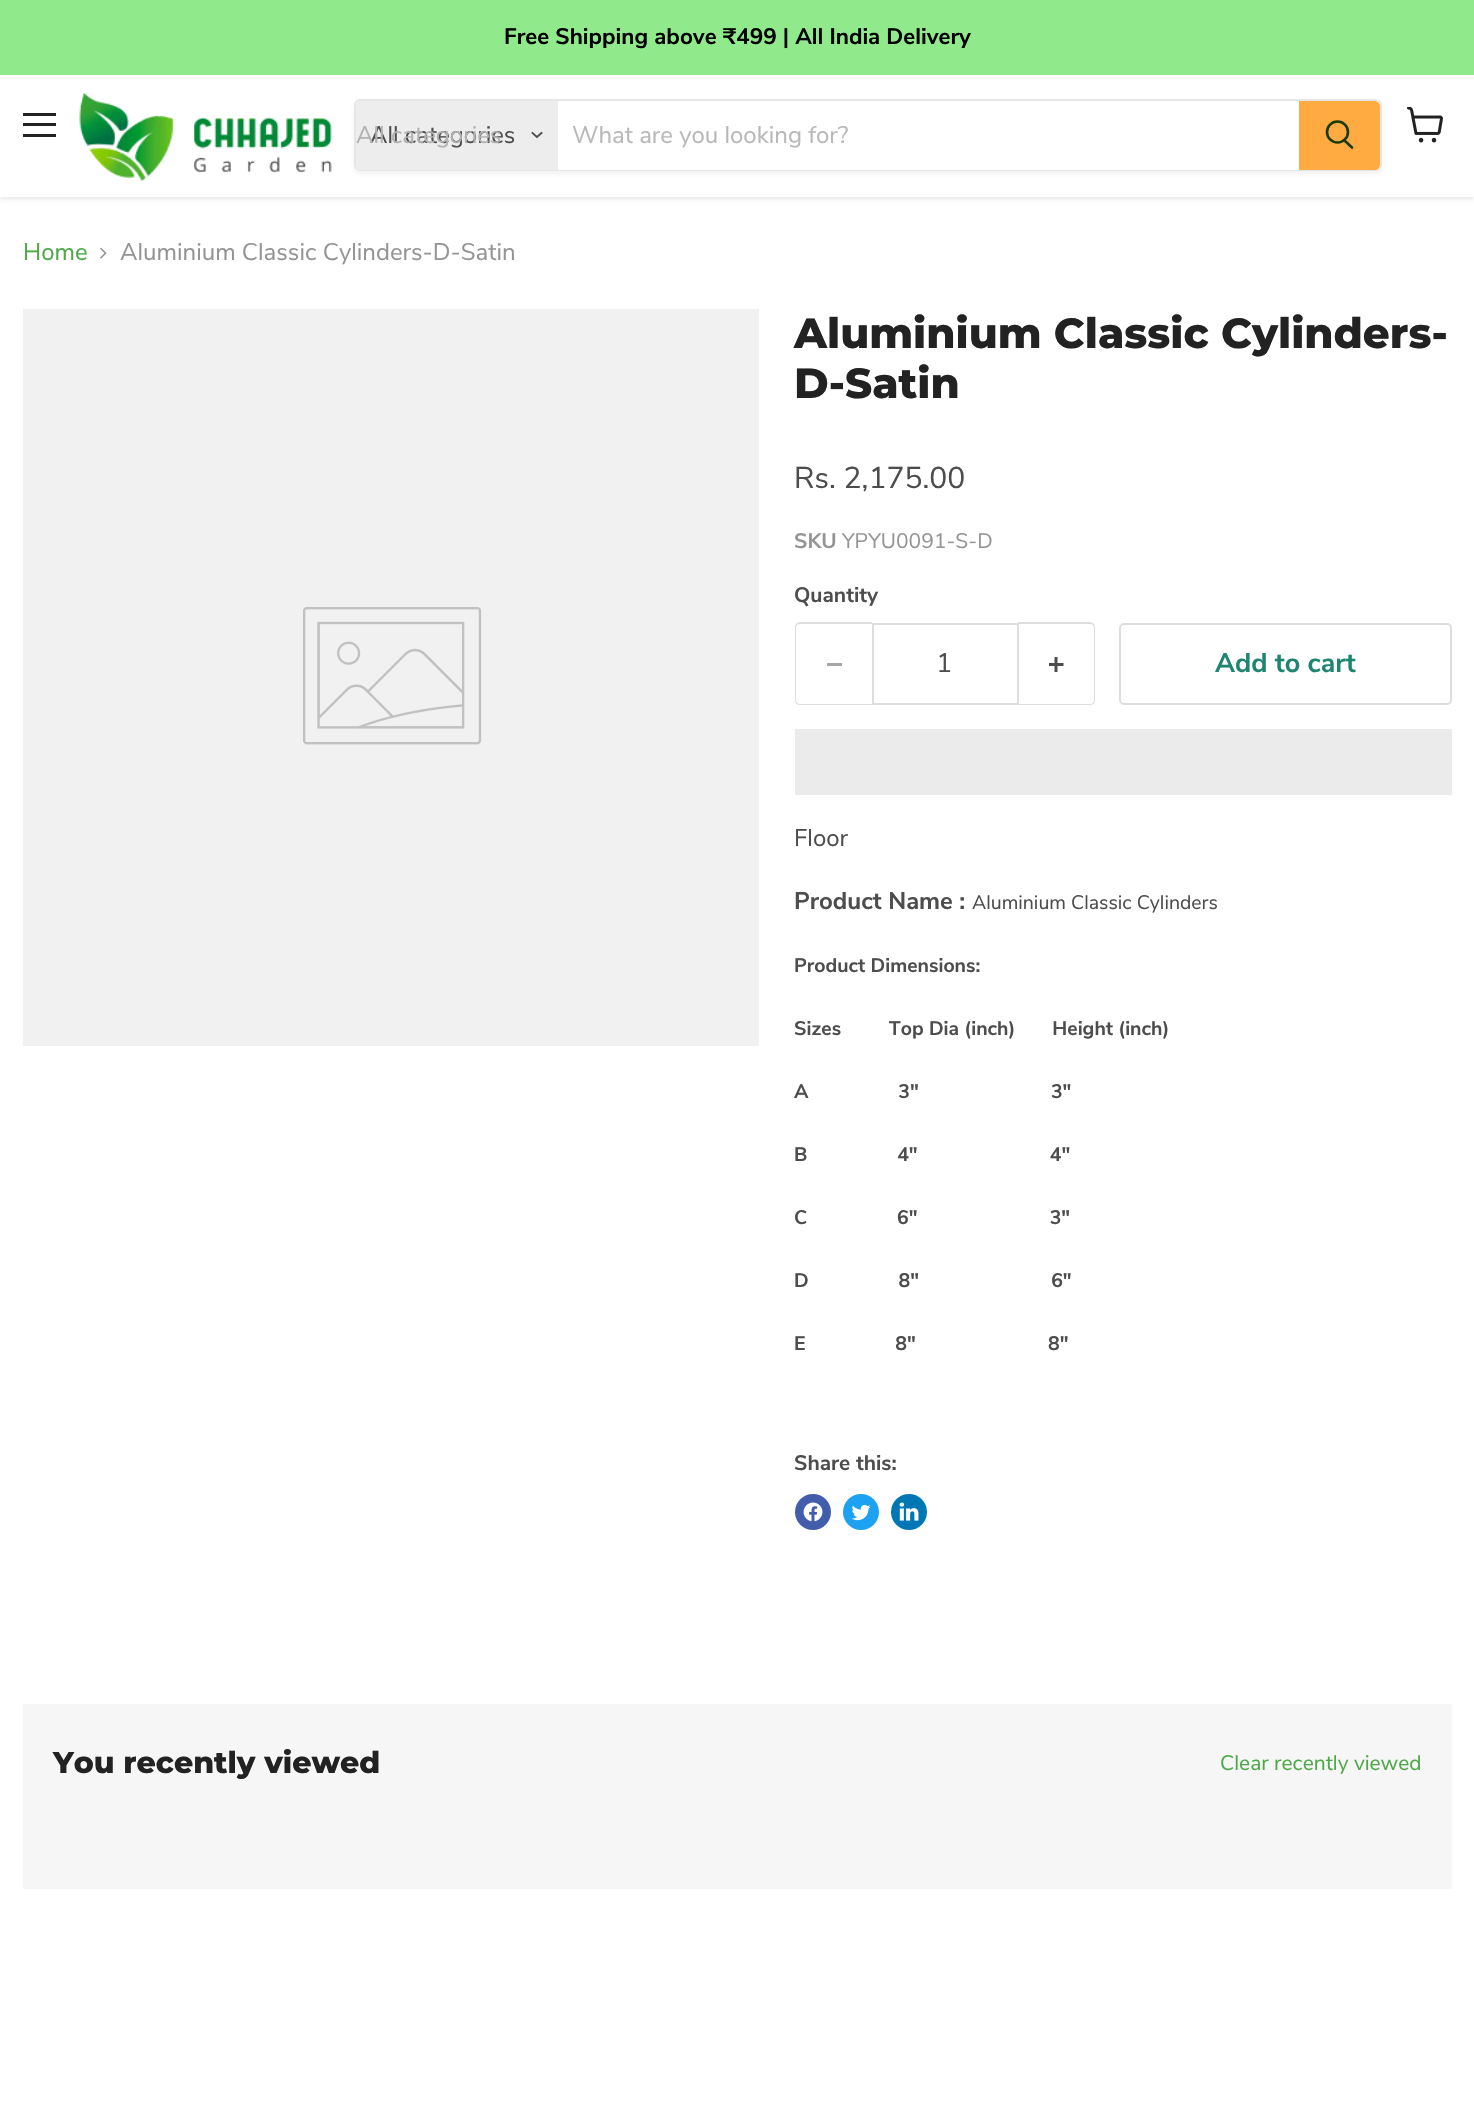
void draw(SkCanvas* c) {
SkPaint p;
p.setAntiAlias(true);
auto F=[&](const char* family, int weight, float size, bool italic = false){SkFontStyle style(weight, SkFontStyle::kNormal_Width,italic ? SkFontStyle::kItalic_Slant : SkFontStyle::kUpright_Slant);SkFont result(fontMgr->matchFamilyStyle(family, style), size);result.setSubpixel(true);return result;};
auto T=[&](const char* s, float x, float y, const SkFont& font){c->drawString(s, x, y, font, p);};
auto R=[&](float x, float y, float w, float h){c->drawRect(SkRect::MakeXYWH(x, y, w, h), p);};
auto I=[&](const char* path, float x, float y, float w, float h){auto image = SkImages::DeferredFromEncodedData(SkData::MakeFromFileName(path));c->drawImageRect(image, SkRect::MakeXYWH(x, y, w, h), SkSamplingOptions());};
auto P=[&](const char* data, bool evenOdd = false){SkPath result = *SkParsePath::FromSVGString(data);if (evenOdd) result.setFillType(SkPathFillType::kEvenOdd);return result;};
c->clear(0xffffffff);
p.setColor(0x40808080);
p.setMaskFilter(SkMaskFilter::MakeBlur(kNormal_SkBlurStyle, 3));
c->drawRect(SkRect::MakeXYWH(0,77,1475,121),p);
p.setMaskFilter(nullptr);
p.setColor(0xff90e98b);
R(0,0,1474,75);
auto f1 = F("Nunito Sans",700,22.5);
p.setColor(0xff000000);
T("Free Shipping above ₹499 | All India Delivery",504,44,f1);
p.setColor(0xffffffff);
R(0,75,1474,122);
p.setColor(0xff222222);
R(23,113,33,3);
R(23,123,33,3);
R(23,134,33,3);
I("1.png",79,92,253,90);
c->save();
c->clipPath(P("M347 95h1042v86h-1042zm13 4h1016c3.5 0 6 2.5 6 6v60c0 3.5-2.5 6-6 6h-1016c-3.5 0-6-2.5-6-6v-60c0-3.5 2.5-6 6-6z",true),true);
p.setColor(0x1c808080);
p.setMaskFilter(SkMaskFilter::MakeBlur(kNormal_SkBlurStyle, 2));
c->drawRoundRect(SkRect::MakeXYWH(354,102,1028,72),6,6,p);
p.setMaskFilter(nullptr);
c->restore();
p.setStroke(true);
p.setStrokeWidth(2);
p.setColor(0x33808080);
c->drawRoundRect(SkRect::MakeXYWH(355,100,1026,70),5,5,p);
p.setStroke(false);
p.setColor(0xffededed);
c->drawPath(P("M361 101h197v69h-197c-3 0-5-2-5-5v-59c0-3 2-5 5-5z"),p);
auto f2 = F("Nunito Sans",400,24);
p.setColor(0xff4d4d4d);
T("All categories",370,143,f2);
p.setColor(0xffb2b2b2);
T("All categories",356,143,f2);
p.setStroke(true);
p.setStrokeWidth(1.9);
p.setStrokeCap(SkPaint::kSquare_Cap);
p.setColor(0xff4d4d4d);
c->drawPath(P("M537 137l4.5-4m-4.5 4l-4.5-4"),p);
p.setStroke(false);
p.setColor(0xffffffff);
R(558,169,741,1);
p.setColor(0xffb8b8b8);
T("What are you looking for?",572,143,f2);
p.setColor(0xffffab41);
c->drawPath(P("M1300 102h75c2 0 4 2 4 4v59c0 2-2 4-4 4h-75z"),p);
p.setStroke(true);
p.setStrokeWidth(2);
p.setStrokeCap(SkPaint::kButt_Cap);
c->drawPath(P("M1300 102h75c2 0 4 2 4 4v59c0 2-2 4-4 4h-75z"),p);
p.setStrokeWidth(2.6);
p.setStrokeCap(SkPaint::kRound_Cap);
p.setColor(0xff1a390c);
c->drawPath(P("M1352 147.5l-7.5-7"),p);
p.setStrokeCap(SkPaint::kButt_Cap);
c->drawCircle(1337.5,132,10.5,p);
I("2.png",1407,107,36,36);
p.setStroke(false);
p.setColor(0xff4da947);
T("Home",23,260,f2);
I("3.png",100,247,7,12);
p.setColor(0xff949494);
T("Aluminium Classic Cylinders-D-Satin",120,260,f2);
p.setColor(0xfff1f1f1);
R(23,309,736,737);
I("4.png",303,607,179,138);
auto f3 = F("Montserrat",800,42);
p.setColor(0xff222222);
T("Aluminium Classic Cylinders-",794,348,f3);
T("D-Satin",794,398,f3);
auto f4 = F("Nunito Sans",400,30);
p.setColor(0xff4d4d4d);
T("Rs. 2,175.00",794,488,f4);
auto f5 = F("Nunito Sans",700,21);
p.setColor(0xff949494);
T("SKU",794,548,f5);
auto f6 = F("Nunito Sans",400,21);
T("YPYU0091-S-D",842,548,f6);
p.setColor(0xff4d4d4d);
T("Quantity",794,602,f5);
p.setColor(0xffdddddd);
c->drawPath(P("M800 622h72v83h-72c-3 0-5-2-5-5v-73c0-2 2-5 5-5zm0 2h72v80h-72c-2 0-4-2-4-4v-73c0-2 2-3 4-3z",true),p);
p.setColor(0xffa6a6a6);
R(827,663,15,3);
p.setStroke(true);
p.setStrokeWidth(2);
p.setColor(0xffdddddd);
c->drawRect(SkRect::MakeXYWH(873,624,145,80),p);
auto f7 = F("Nunito Sans",400,27);
p.setStroke(false);
p.setColor(0xff4d4d4d);
T("1",936,672,f7);
p.setColor(0xffdddddd);
c->drawPath(P("M1018 622h72c3 0 5 3 5 5v73c0 3-2 5-5 5h-72zm0 2h72c2 0 4 1 4 3v73c0 2-2 4-4 4h-72z",true),p);
I("5.png",1049,657,15,15);
p.setStroke(true);
c->drawRoundRect(SkRect::MakeXYWH(1120,624,331,80),4,4,p);
auto f8 = F("Nunito Sans",700,27);
p.setStroke(false);
p.setColor(0xff1e8570);
T("Add to cart",1215,672,f8);
p.setColor(0xffebebeb);
R(795,729,657,66);
p.setColor(0xff4d4d4d);
T("Floor",794,846,f2);
auto f9 = F("Nunito Sans",700,24);
T("Product Name :",794,909,f9);
auto f10 = F("Nunito Sans",400,19.5);
T("Aluminium Classic Cylinders",972,909,f10);
auto f11 = F("Nunito Sans",700,19.5);
T("Product Dimensions:",794,972,f11);
T("Sizes         Top Dia (inch)       Height (inch)",794,1035,f11);
T("A                 3\"                         3\"",794,1098,f11);
T("B                 4\"                         4\"",794,1161,f11);
T("C                 6\"                         3\"",794,1224,f11);
T("D                 8\"                         6\"",794,1287,f11);
T("E                 8\"                         8\"",794,1350,f11);
T("Share this:",794,1470,f5);
p.setColor(0xff425dab);
c->drawCircle(813,1512,18,p);
I("6.png",803,1502,20,20);
p.setColor(0xff1da1f2);
c->drawCircle(861,1512,18,p);
I("7.png",851,1504,20,17);
p.setColor(0xff0077b5);
c->drawCircle(909,1512,18,p);
I("8.png",899,1502,20,19);
p.setColor(0xfff6f6f6);
R(23,1704,1429,185);
auto f12 = F("Montserrat",800,30);
p.setColor(0xff222222);
T("You recently viewed",53,1773,f12);
p.setColor(0xff4da947);
T("Clear recently viewed",1220,1770,f6);
}
